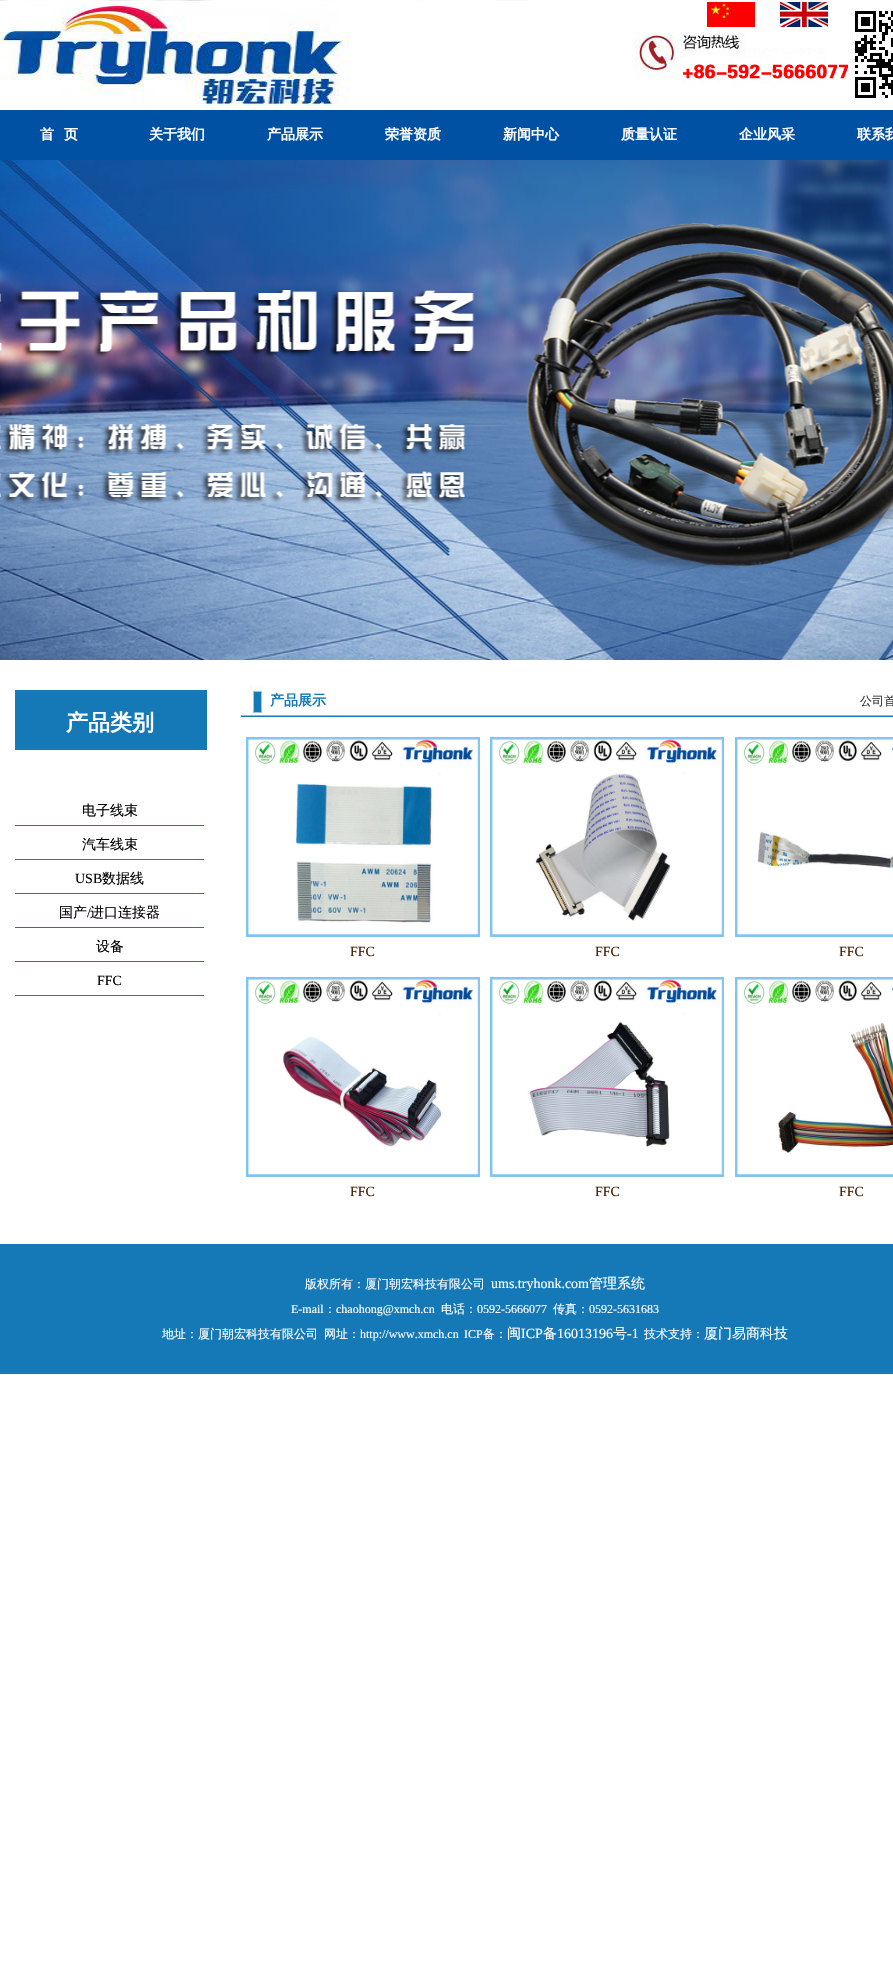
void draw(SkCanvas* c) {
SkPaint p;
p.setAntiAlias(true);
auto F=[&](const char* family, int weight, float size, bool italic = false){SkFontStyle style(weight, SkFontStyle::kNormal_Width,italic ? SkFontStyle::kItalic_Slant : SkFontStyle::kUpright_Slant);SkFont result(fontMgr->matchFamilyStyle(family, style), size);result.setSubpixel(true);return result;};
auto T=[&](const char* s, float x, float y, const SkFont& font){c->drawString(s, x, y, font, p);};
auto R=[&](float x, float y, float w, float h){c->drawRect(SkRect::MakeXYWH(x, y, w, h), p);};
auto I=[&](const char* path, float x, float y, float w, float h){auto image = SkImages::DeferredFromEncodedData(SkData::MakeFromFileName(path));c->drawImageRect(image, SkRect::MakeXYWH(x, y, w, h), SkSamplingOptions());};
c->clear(0xffffffff);
I("1.png",0,0,529,110);
I("2.png",634,2,259,102);
p.setColor(0xff0050a3);
R(0,110,893,50);
auto f1 = F("WenQuanYi Zen Hei",700,14);
p.setColor(0xffffffff);
T("首",40,139,f1);
T("页",64,139,f1);
T("关于我们",149,139,f1);
T("产品展示",267,139,f1);
T("荣誉资质",385,139,f1);
T("新闻中心",503,139,f1);
T("质量认证",621,139,f1);
T("企业风采",739,139,f1);
T("联系我",857,139,f1);
I("3.png",0,160,893,500);
p.setColor(0xff1479b6);
R(15,690,192,60);
auto f2 = F("WenQuanYi Zen Hei",700,22);
p.setColor(0xffffffff);
T("产品类别",66,730,f2);
p.setColor(0xff1479b6);
R(15,825,189,1);
auto f3 = F("WenQuanYi Zen Hei",500,14);
p.setColor(0xff000000);
T("电子线束",82,815,f3);
p.setColor(0xff1479b6);
R(15,859,189,1);
p.setColor(0xff000000);
T("汽车线束",82,849,f3);
p.setColor(0xff1479b6);
R(15,893,189,1);
auto f4 = F("Liberation Serif",400,14);
p.setColor(0xff000000);
T("USB",75,883,f4);
T("数据线",102,883,f3);
p.setColor(0xff1479b6);
R(15,927,189,1);
p.setColor(0xff000000);
T("国产",59,917,f3);
T("/",87,917,f4);
T("进口连接器",90,917,f3);
p.setColor(0xff1479b6);
R(15,961,189,1);
p.setColor(0xff000000);
T("设备",96,951,f3);
p.setColor(0xff1479b6);
R(15,995,189,1);
p.setColor(0xff000000);
T("FFC",97,985,f4);
I("4.png",241,685,652,32);
p.setColor(0xff1479b6);
T("产品展示",270,705,f1);
auto f5 = F("WenQuanYi Zen Hei",500,12);
p.setColor(0xff333333);
T("公司首",860,705,f5);
I("5.png",246,737,234,200);
p.setColor(0xff451e00);
T("FFC",350,956,f4);
I("6.png",490,737,234,200);
T("FFC",595,956,f4);
I("7.png",735,737,158,200);
T("FFC",839,956,f4);
I("8.png",246,977,234,200);
T("FFC",350,1196,f4);
I("9.png",490,977,234,200);
T("FFC",595,1196,f4);
I("10.png",735,977,158,200);
T("FFC",839,1196,f4);
p.setColor(0xff1479b6);
R(0,1244,893,130);
p.setColor(0xffffffff);
T("版权所有：厦门朝宏科技有限公司",305,1288,f5);
T("ums.tryhonk.com",491,1288,f4);
T("管理系统",589,1288,f3);
auto f6 = F("Liberation Serif",400,12);
T("E-mail",291,1313,f6);
T("：",324,1313,f5);
T("chaohong@xmch.cn",336,1313,f6);
T("电话：",441,1313,f5);
T("0592-5666077",477,1313,f6);
T("传真：",553,1313,f5);
T("0592-5631683",589,1313,f6);
T("地址：厦门朝宏科技有限公司",162,1338,f5);
T("网址：",324,1338,f5);
T("http://www.xmch.cn",360,1338,f6);
T("ICP",464,1338,f6);
T("备：",483,1338,f5);
T("闽",507,1338,f3);
T("ICP",521,1338,f4);
T("备",543,1338,f3);
T("16013196",557,1338,f4);
T("号",613,1338,f3);
T("-1",627,1338,f4);
T("技术支持：",644,1338,f5);
T("厦门易商科技",704,1338,f3);
}
